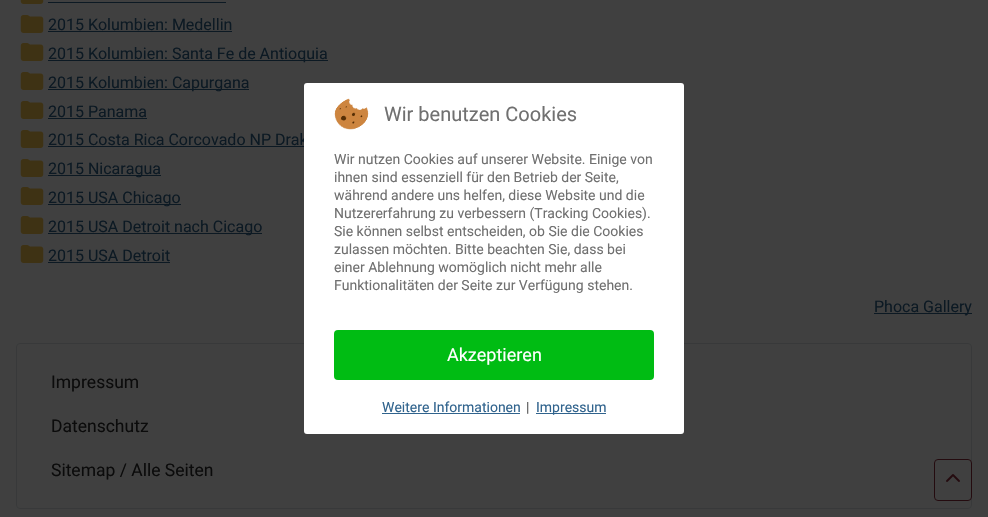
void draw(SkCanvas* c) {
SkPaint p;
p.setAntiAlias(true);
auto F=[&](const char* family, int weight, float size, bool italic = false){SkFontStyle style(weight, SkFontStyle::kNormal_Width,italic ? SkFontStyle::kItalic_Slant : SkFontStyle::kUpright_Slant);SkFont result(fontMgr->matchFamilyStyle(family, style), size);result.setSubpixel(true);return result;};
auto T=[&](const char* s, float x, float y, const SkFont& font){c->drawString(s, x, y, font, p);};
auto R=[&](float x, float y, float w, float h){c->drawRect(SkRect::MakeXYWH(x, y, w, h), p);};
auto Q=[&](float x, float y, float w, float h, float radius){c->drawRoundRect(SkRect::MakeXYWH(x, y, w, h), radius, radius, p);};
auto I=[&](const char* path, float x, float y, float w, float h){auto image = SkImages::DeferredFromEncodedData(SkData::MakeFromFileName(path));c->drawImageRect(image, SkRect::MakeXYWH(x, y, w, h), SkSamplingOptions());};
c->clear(0xff404040);
I("1.png",20,0,24,4);
p.setColor(0xff0c1923);
R(48,2,178,1);
I("2.png",20,15,24,18);
auto f1 = F("Roboto",400,16);
T("2015 Kolumbien: Medellin",48,30,f1);
R(48,31,184,1);
I("2.png",20,43,24,18);
R(48,60,280,1);
T("2015 Kolumbien: Santa Fe de Antioquia",48,59,f1);
I("2.png",20,72,24,18);
R(48,89,201,1);
T("2015 Kolumbien: Capurgana",48,88,f1);
I("2.png",20,101,24,18);
T("2015 Panama",48,117,f1);
R(48,118,99,1);
I("2.png",20,130,24,18);
T("2015 Costa Rica Corcovado NP Drak",48,145,f1);
R(48,146,256,1);
I("2.png",20,159,24,18);
R(48,175,113,1);
T("2015 Nicaragua",48,174,f1);
I("2.png",20,187,24,18);
R(48,204,133,1);
T("2015 USA Chicago",48,203,f1);
I("2.png",20,216,24,18);
R(48,233,214,1);
T("2015 USA Detroit nach Cicago",48,232,f1);
I("2.png",20,245,24,18);
T("2015 USA Detroit",48,261,f1);
R(48,262,122,1);
R(874,313,98,1);
T("Phoca Gallery",874,312,f1);
p.setStroke(true);
p.setStrokeWidth(1);
p.setColor(0xff38393a);
c->drawRoundRect(SkRect::MakeXYWH(16.5,343.5,955,165),3.5,3.5,p);
auto f2 = F("Roboto",400,17.5);
p.setStroke(false);
p.setColor(0xff0b0b0b);
T("Impressum",51,388,f2);
T("Datenschutz",51,432,f2);
T("Sitemap / Alle Seiten",51,476,f2);
p.setColor(0xffffffff);
Q(304,83,380,351,3);
I("3.png",334,98,35,32);
auto f3 = F("Roboto",400,20);
p.setColor(0xff707070);
T("Wir benutzen Cookies",384,121,f3);
auto f4 = F("Roboto",400,14);
T("Wir nutzen Cookies auf unserer Website. Einige von",334,164,f4);
T("ihnen sind essenziell für den Betrieb der Seite,",334,182,f4);
T("während andere uns helfen, diese Website und die",334,200,f4);
T("Nutzererfahrung zu verbessern (Tracking Cookies).",334,218,f4);
T("Sie können selbst entscheiden, ob Sie die Cookies",334,236,f4);
T("zulassen möchten. Bitte beachten Sie, dass bei",334,254,f4);
T("einer Ablehnung womöglich nicht mehr alle",334,272,f4);
T("Funktionalitäten der Seite zur Verfügung stehen.",334,290,f4);
p.setColor(0xff00bc13);
Q(334,330,320,50,4);
auto f5 = F("Roboto",400,18);
p.setColor(0xffffffff);
T("Akzeptieren",447,361,f5);
p.setColor(0xff30638d);
T("Weitere Informationen",382,412,f4);
R(382,413,138,1);
p.setColor(0xff575757);
T("|",526,412,f4);
p.setColor(0xff30638d);
R(536,413,70,1);
T("Impressum",536,412,f4);
p.setColor(0xff404040);
c->drawRoundRect(SkRect::MakeXYWH(934.5,459.5,37,41),3.5,3.5,p);
p.setStroke(true);
p.setColor(0xff240b0f);
c->drawRoundRect(SkRect::MakeXYWH(934.5,459.5,37,41),3.5,3.5,p);
I("4.png",946,474,14,8);
}
